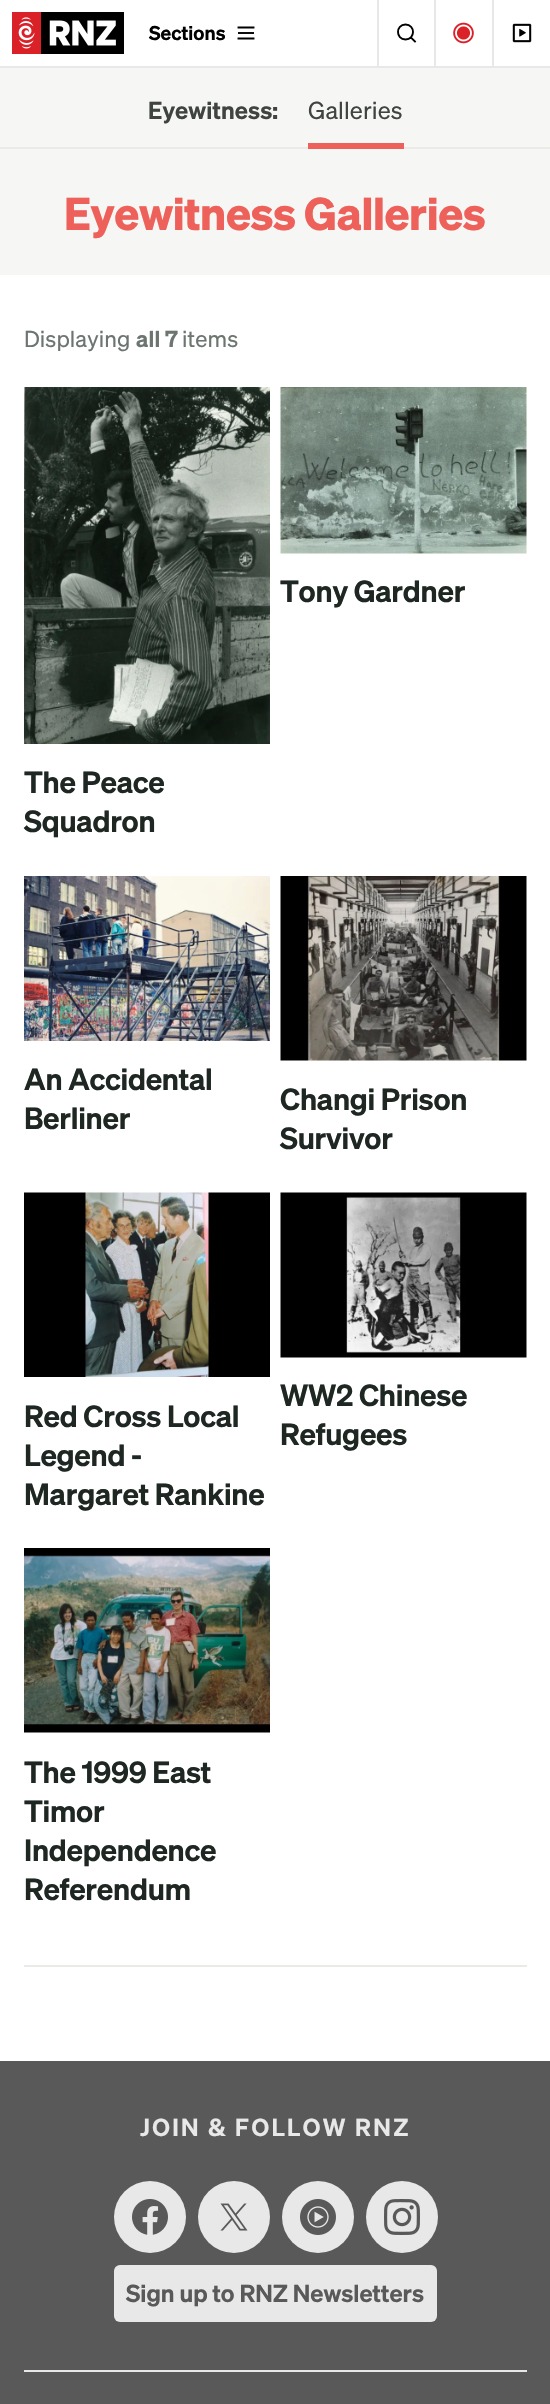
void draw(SkCanvas* c) {
SkPaint p;
p.setAntiAlias(true);
auto F=[&](const char* family, int weight, float size, bool italic = false){SkFontStyle style(weight, SkFontStyle::kNormal_Width,italic ? SkFontStyle::kItalic_Slant : SkFontStyle::kUpright_Slant);SkFont result(fontMgr->matchFamilyStyle(family, style), size);result.setSubpixel(true);return result;};
auto T=[&](const char* s, float x, float y, const SkFont& font){c->drawString(s, x, y, font, p);};
auto L=[&](const char* s, float x, float y, const SkFont& font, const SkPaint& ink, float letter, float word){std::vector<SkGlyphID> glyphs(font.countText(s, strlen(s), SkTextEncoding::kUTF8));std::vector<float> xs(glyphs.size());font.textToGlyphs(s, strlen(s), SkTextEncoding::kUTF8, glyphs);font.getXPos(glyphs, xs, x);float extra = 0;for (size_t i = 0; i < glyphs.size(); i++) {xs[i] += extra;extra += letter + word * (glyphs[i] == font.unicharToGlyph(' '));}c->drawTextBlob(SkTextBlob::MakeFromPosHGlyphs(glyphs, xs, y, font), 0, 0, ink);};
auto R=[&](float x, float y, float w, float h){c->drawRect(SkRect::MakeXYWH(x, y, w, h), p);};
auto Q=[&](float x, float y, float w, float h, float radius){c->drawRoundRect(SkRect::MakeXYWH(x, y, w, h), radius, radius, p);};
auto I=[&](const char* path, float x, float y, float w, float h){auto image = SkImages::DeferredFromEncodedData(SkData::MakeFromFileName(path));c->drawImageRect(image, SkRect::MakeXYWH(x, y, w, h), SkSamplingOptions());};
auto P=[&](const char* data, bool evenOdd = false){SkPath result = *SkParsePath::FromSVGString(data);if (evenOdd) result.setFillType(SkPathFillType::kEvenOdd);return result;};
c->clear(0xffffffff);
p.setColor(0xffe8e8e8);
R(0,66,550,2);
I("1.png",12,12,112,42);
auto f1 = F("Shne",600,19.5);
p.setColor(0xff000000);
T("Sections",149,40,f1);
p.setStroke(true);
p.setStrokeWidth(1.9);
p.setStrokeCap(SkPaint::kSquare_Cap);
c->drawPath(P("M238.5 38.5h15m-15-11h15"),p);
p.setStroke(false);
p.setColor(0xff0d0d0d);
R(238,32,16,2);
p.setColor(0xffe8e8e8);
R(377,0,2,66);
p.setStroke(true);
p.setStrokeJoin(SkPaint::kBevel_Join);
p.setColor(0xff000000);
c->drawPath(P("M405.5 39.5c10 0 10-15 0-15c-10 0-10 15 0 15zm9.5 2l-4-4"),p);
p.setStroke(false);
p.setColor(0xffe8e8e8);
R(434,0,2,66);
I("2.png",453,22,21,22);
R(492,0,2,66);
I("3.png",512,23,20,20);
p.setColor(0xfff6f6f4);
R(0,68,550,79);
auto f2 = F("Shne",600,24);
p.setColor(0xff404441);
L("Eyewitness:",148,119,f2,p,.1,0);
auto f3 = F("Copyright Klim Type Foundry",400,24);
L("Galleries",308,119,f3,p,.1,0);
p.setColor(0xffebeae6);
R(0,147,550,2);
p.setColor(0xffed615a);
R(308,143,96,6);
p.setColor(0xfff6f6f4);
R(0,149,550,126);
auto f4 = F("Copyright Klim Type Foundry",700,45);
p.setColor(0xffed615a);
L("Eyewitness Galleries",64,230,f4,p,-.4,0);
auto f5 = F("Copyright Klim Type Foundry",400,22.5);
p.setColor(0xff6d7570);
L("Displaying",24,347,f5,p,.1,0);
auto f6 = F("Shne",600,22.5);
L("all 7",136,347,f6,p,.25,0);
L("items",182,347,f5,p,.1,0);
I("4.png",280,387,247,167);
auto f7 = F("Shne",600,30);
p.setColor(0xff1e2722);
L("Tony Gardner",280,602,f7,p,-.25,0);
I("5.png",24,387,246,357);
L("The Peace",24,793,f7,p,-.25,0);
L("Squadron",24,832,f7,p,-.25,0);
I("6.png",24,876,246,165);
L("An Accidental",24,1090,f7,p,-.25,0);
L("Berliner",24,1129,f7,p,-.25,0);
I("7.png",280,876,247,185);
L("Changi Prison",280,1110,f7,p,-.25,0);
L("Survivor",280,1149,f7,p,-.25,0);
I("8.png",24,1192,246,185);
L("Red Cross Local",24,1427,f7,p,-.25,0);
L("Legend -",24,1466,f7,p,-.25,0);
L("Margaret Rankine",24,1505,f7,p,-.25,0);
I("9.png",280,1192,247,166);
L("WW2 Chinese",280,1406,f7,p,-.25,0);
L("Refugees",280,1445,f7,p,-.25,0);
I("10.png",24,1548,246,185);
L("The 1999 East",24,1783,f7,p,-.25,0);
L("Timor",24,1822,f7,p,-.25,0);
L("Independence",24,1861,f7,p,-.25,0);
L("Referendum",24,1900,f7,p,-.25,0);
p.setColor(0xffebeae6);
R(24,1965,503,2);
p.setColor(0xff595959);
R(0,2061,550,343);
p.setColor(0xffe8e8e8);
L("JOIN & FOLLOW RNZ",140,2136,f2,p,2.4,0);
c->drawCircle(150,2217,36,p);
I("11.png",132,2199,36,36);
c->drawCircle(234,2217,36,p);
I("12.png",220,2203,28,28);
c->drawCircle(318,2217,36,p);
I("13.png",300,2199,36,36);
c->drawCircle(402,2217,36,p);
I("14.png",384,2199,36,36);
Q(114,2265,323,57,6);
p.setColor(0xff595959);
T("Sign up to RNZ Newsletters",126,2302,f2);
p.setColor(0xffe8e8e8);
R(24,2370,503,2);
}
